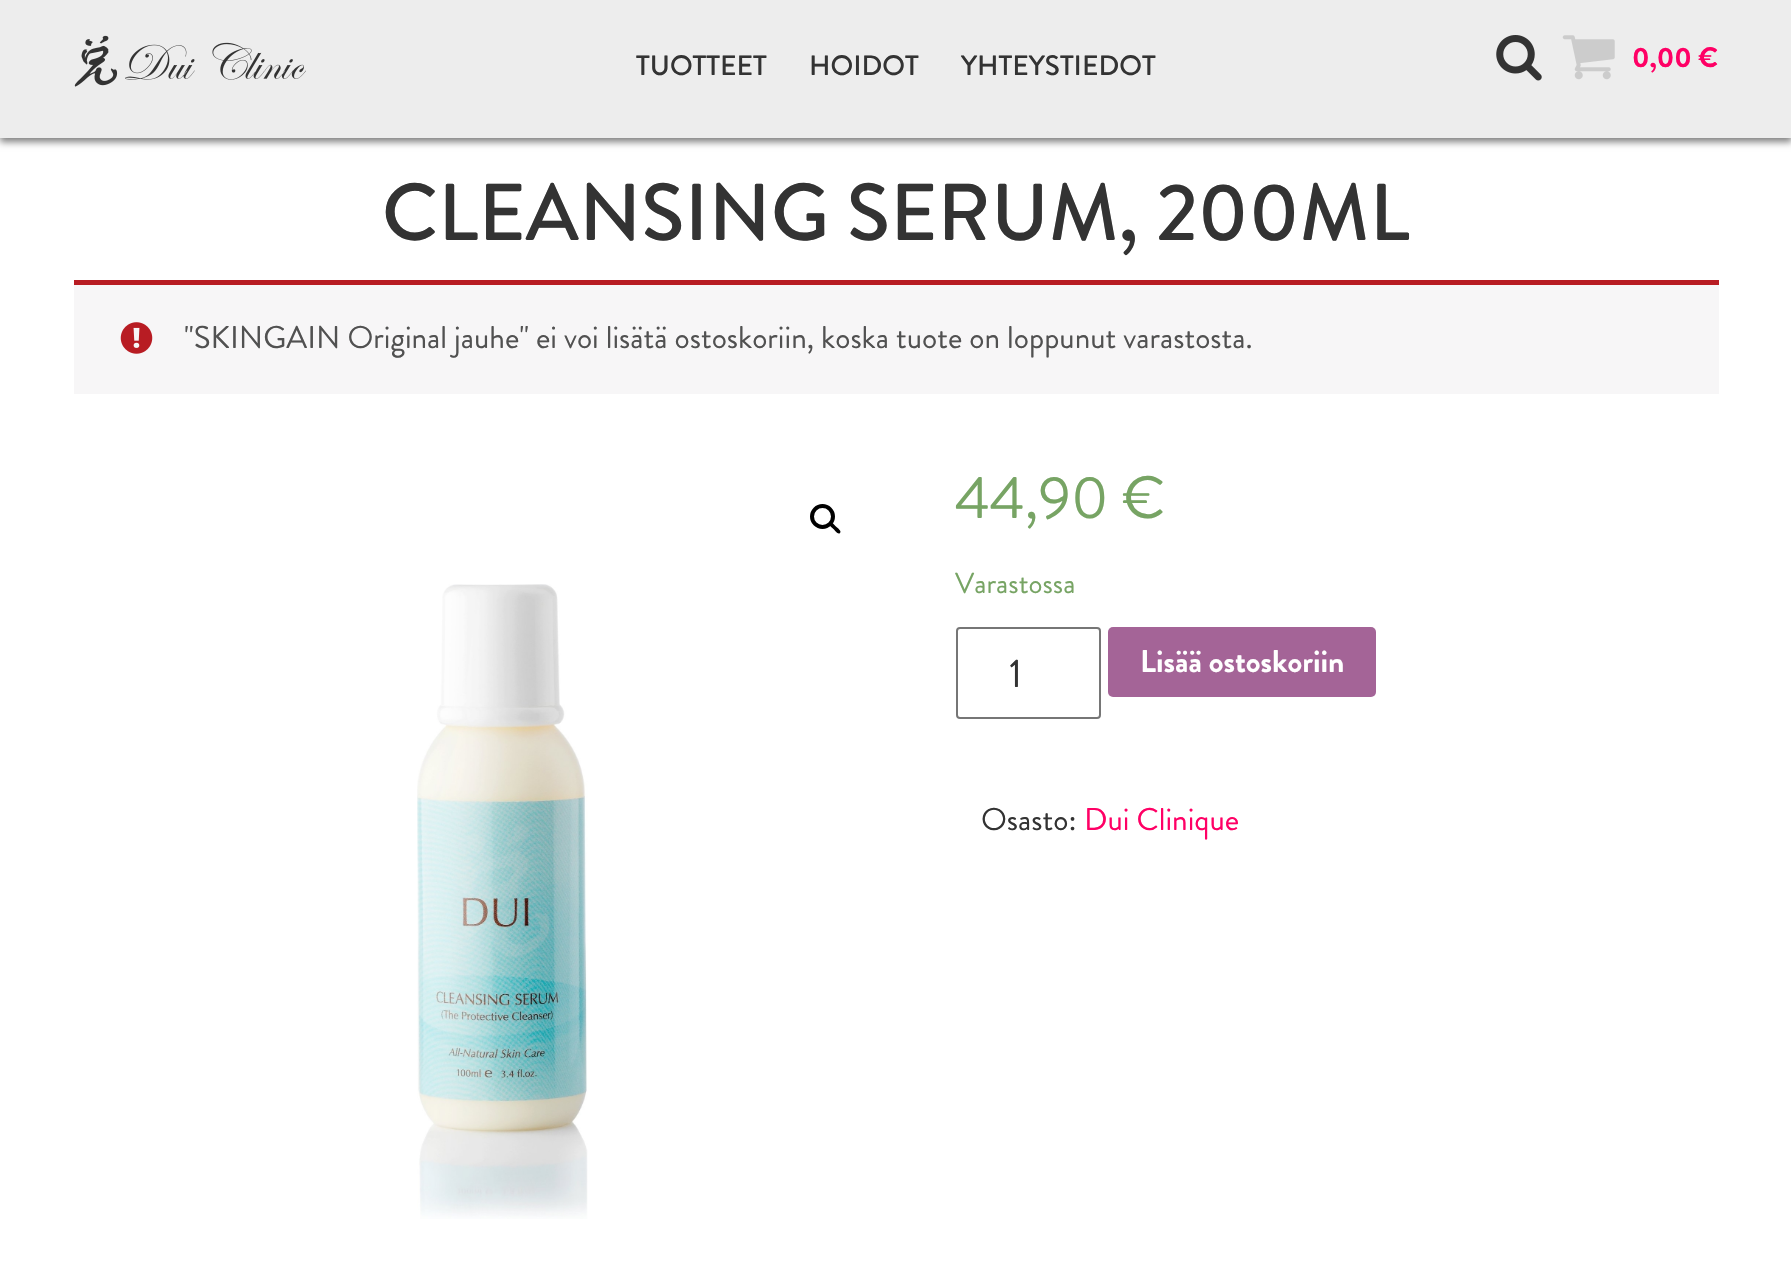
void draw(SkCanvas* c) {
SkPaint p;
p.setAntiAlias(true);
auto F=[&](const char* family, int weight, float size, bool italic = false){SkFontStyle style(weight, SkFontStyle::kNormal_Width,italic ? SkFontStyle::kItalic_Slant : SkFontStyle::kUpright_Slant);SkFont result(fontMgr->matchFamilyStyle(family, style), size);result.setSubpixel(true);return result;};
auto T=[&](const char* s, float x, float y, const SkFont& font){c->drawString(s, x, y, font, p);};
auto R=[&](float x, float y, float w, float h){c->drawRect(SkRect::MakeXYWH(x, y, w, h), p);};
auto Q=[&](float x, float y, float w, float h, float radius){c->drawRoundRect(SkRect::MakeXYWH(x, y, w, h), radius, radius, p);};
auto I=[&](const char* path, float x, float y, float w, float h){auto image = SkImages::DeferredFromEncodedData(SkData::MakeFromFileName(path));c->drawImageRect(image, SkRect::MakeXYWH(x, y, w, h), SkSamplingOptions());};
auto P=[&](const char* data, bool evenOdd = false){SkPath result = *SkParsePath::FromSVGString(data);if (evenOdd) result.setFillType(SkPathFillType::kEvenOdd);return result;};
c->clear(0xffffffff);
p.setColor(0x80000000);
p.setMaskFilter(SkMaskFilter::MakeBlur(kNormal_SkBlurStyle, 3.5));
c->drawRect(SkRect::MakeXYWH(0,4,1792,138),p);
p.setMaskFilter(nullptr);
p.setColor(0xffededed);
R(0,0,1791,138);
I("1.png",74,35,232,52);
auto f1 = F("Brandon Grotesque",500,28);
p.setColor(0xff333333);
T("TUOTTEET",636,75,f1);
T("HOIDOT",809,75,f1);
T("YHTEYSTIEDOT",961,75,f1);
I("2.png",1496,35,46,46);
I("3.png",1562,35,53,45);
auto f2 = F("Brandon Grotesque",700,28);
p.setColor(0xffff0065);
T("0,00 €",1632,67,f2);
auto f3 = F("Brandon Grotesque",500,80.5);
p.setColor(0xff333333);
T("CLEANSING SERUM, 200ML",382,240,f3);
p.setColor(0xfff7f6f7);
R(74,285,1645,109);
p.setColor(0xffb81c23);
R(74,280,1645,5);
I("4.png",120,322,33,32);
auto f4 = F("Brandon Grotesque",400,31.5);
p.setColor(0xff515151);
T("\"SKINGAIN Original jauhe\" ei voi lisätä ostoskoriin, koska tuote on loppunut varastosta.",184,348,f4);
p.setStroke(true);
p.setStrokeWidth(4);
p.setColor(0xff000000);
c->drawCircle(822.5,516.5,10.5,p);
p.setStroke(false);
c->drawPath(P("M830 523c2-2 5 3 6.5 4c1 1 5.5 4 3.5 6c-2 2-5-2.5-6-3.5c-1-1-6-4.5-4-6.5z"),p);
I("5.png",417,584,171,635);
auto f5 = F("Brandon Grotesque",400,59.5);
p.setColor(0xff77a464);
T("44,90 €",955,518,f5);
auto f6 = F("Brandon Grotesque",400,29);
T("Varastossa",955,593,f6);
p.setStroke(true);
p.setStrokeWidth(2);
p.setColor(0xff767676);
c->drawRoundRect(SkRect::MakeXYWH(957,628,143,90),3,3,p);
auto f7 = F("Brandon Grotesque",400,40);
p.setStroke(false);
p.setColor(0xff333333);
T("1",1009,687,f7);
p.setColor(0xffa46497);
Q(1108,627,268,70,5);
auto f8 = F("Brandon Grotesque",700,31.5);
p.setColor(0xffffffff);
T("Lisää ostoskoriin",1140,672,f8);
p.setColor(0xff333333);
T("Osasto:",981,830,f4);
p.setColor(0xffff0065);
T("Dui Clinique",1084,830,f4);
}
